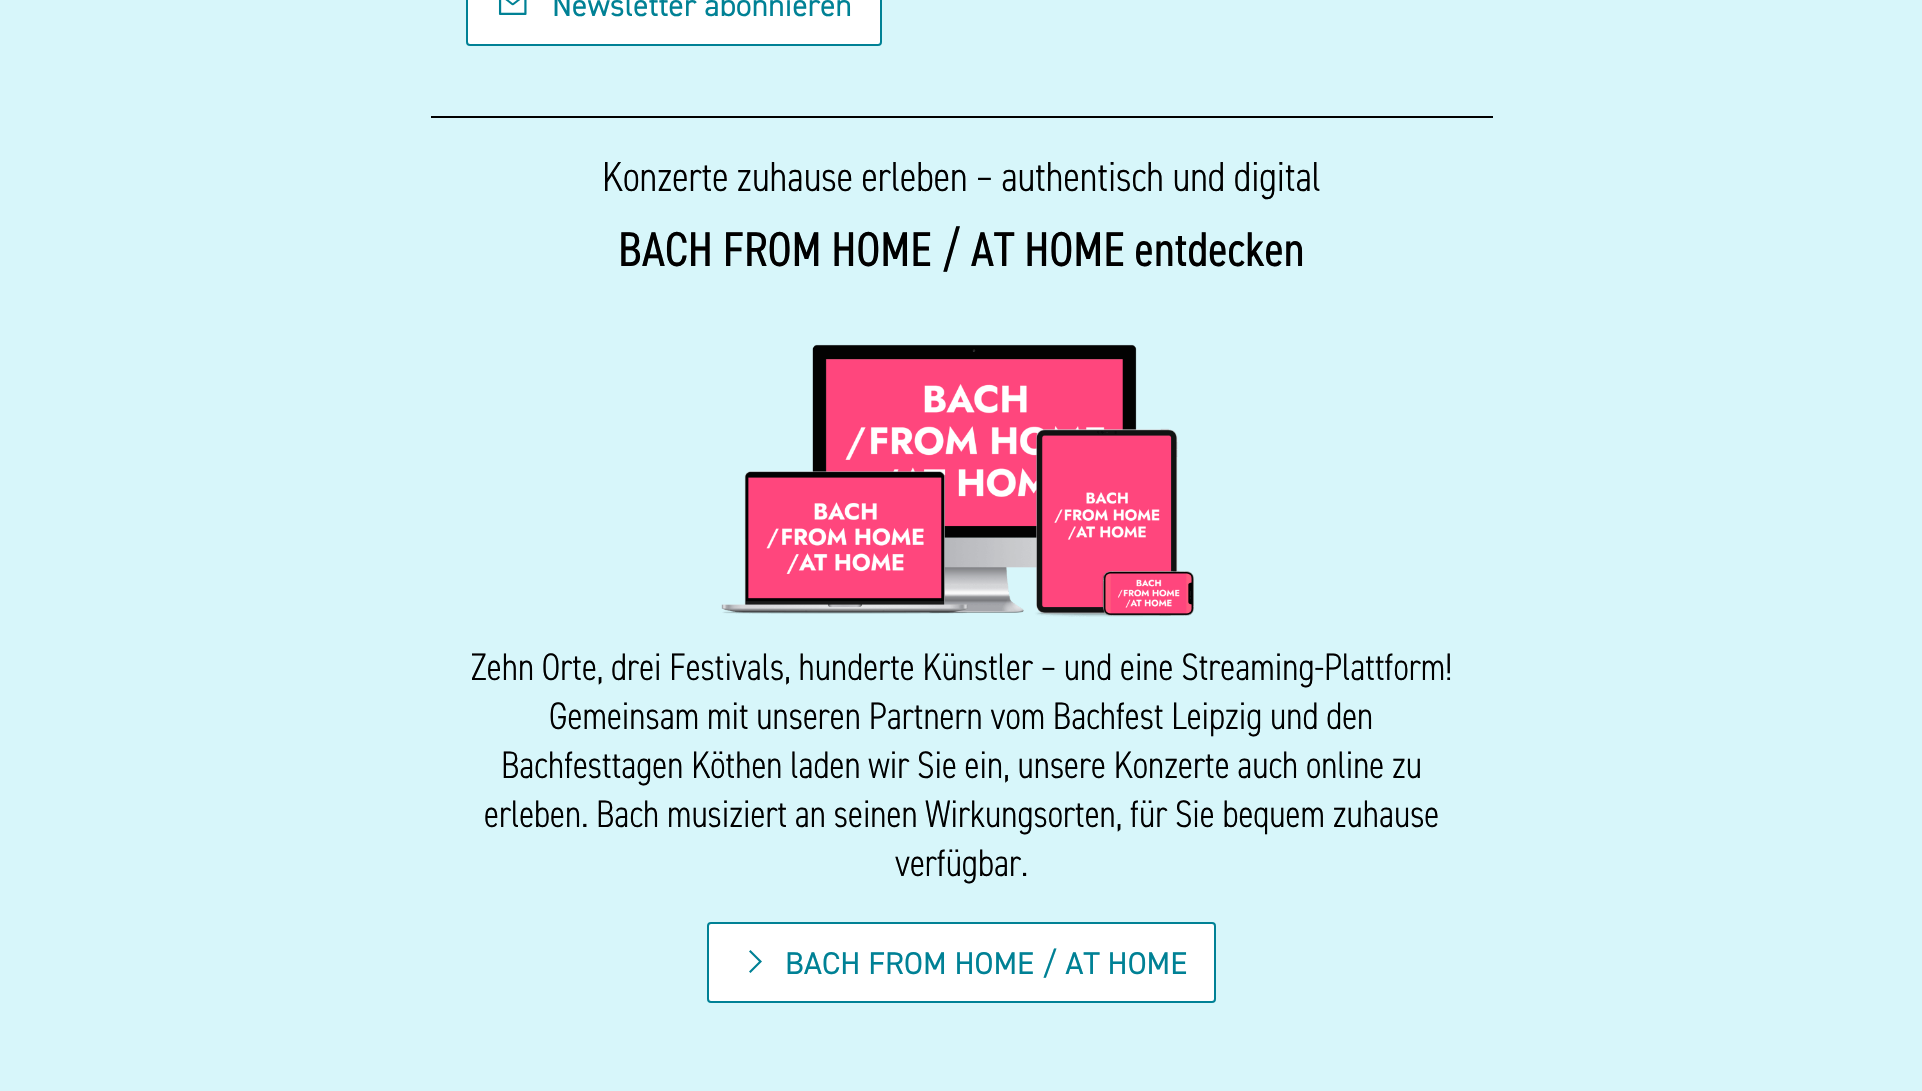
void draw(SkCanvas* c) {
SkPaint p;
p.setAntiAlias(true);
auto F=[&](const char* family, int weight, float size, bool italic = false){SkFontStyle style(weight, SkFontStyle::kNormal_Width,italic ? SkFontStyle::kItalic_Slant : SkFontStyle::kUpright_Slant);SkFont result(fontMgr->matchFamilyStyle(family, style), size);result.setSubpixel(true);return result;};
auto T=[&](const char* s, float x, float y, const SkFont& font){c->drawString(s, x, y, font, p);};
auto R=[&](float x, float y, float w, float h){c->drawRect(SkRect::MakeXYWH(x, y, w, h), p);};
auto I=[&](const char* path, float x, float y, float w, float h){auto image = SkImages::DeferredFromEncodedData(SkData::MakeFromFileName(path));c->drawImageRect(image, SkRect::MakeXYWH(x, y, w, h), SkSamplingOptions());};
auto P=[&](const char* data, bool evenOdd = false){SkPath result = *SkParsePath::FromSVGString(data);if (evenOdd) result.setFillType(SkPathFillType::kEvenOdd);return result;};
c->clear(0xffd7f6fa);
p.setColor(0xff000000);
R(431,116,1062,2);
p.setColor(0xffffffff);
c->drawRoundRect(SkRect::MakeXYWH(467,-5,414,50),3,3,p);
p.setStroke(true);
p.setStrokeWidth(2);
p.setColor(0xff008195);
c->drawRoundRect(SkRect::MakeXYWH(467,-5,414,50),3,3,p);
I("1.png",498,0,29,15);
auto f1 = F("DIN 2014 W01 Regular",400,31.5);
p.setStroke(false);
T("Newsletter abonnieren",552,16,f1);
auto f2 = F("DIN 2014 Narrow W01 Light",300,42);
p.setColor(0xff000000);
T("Konzerte zuhause erleben – authentisch und digital",602,191,f2);
auto f3 = F("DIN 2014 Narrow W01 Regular",400,49);
T("BACH FROM HOME / AT HOME entdecken",618,266,f3);
I("2.png",721,344,473,273);
auto f4 = F("DIN 2014 Narrow W01 Light",300,38.5);
T("Zehn Orte, drei Festivals, hunderte Künstler – und eine Streaming-Plattform!",471,680,f4);
T("Gemeinsam mit unseren Partnern vom Bachfest Leipzig und den",549,729,f4);
T("Bachfesttagen Köthen laden wir Sie ein, unsere Konzerte auch online zu",501,778,f4);
T("erleben. Bach musiziert an seinen Wirkungsorten, für Sie bequem zuhause",484,827,f4);
T("verfügbar.",895,876,f4);
p.setColor(0xffffffff);
c->drawRoundRect(SkRect::MakeXYWH(708,923,507,79),3,3,p);
p.setStroke(true);
p.setColor(0xff008195);
c->drawRoundRect(SkRect::MakeXYWH(708,923,507,79),3,3,p);
p.setStroke(false);
c->drawPath(P("M749 951.5l1.5-1.5l11.5 11.5l-11.5 11.5l-1.5-1.5l10-10z"),p);
T("BACH FROM HOME / AT HOME",785,974,f1);
}
